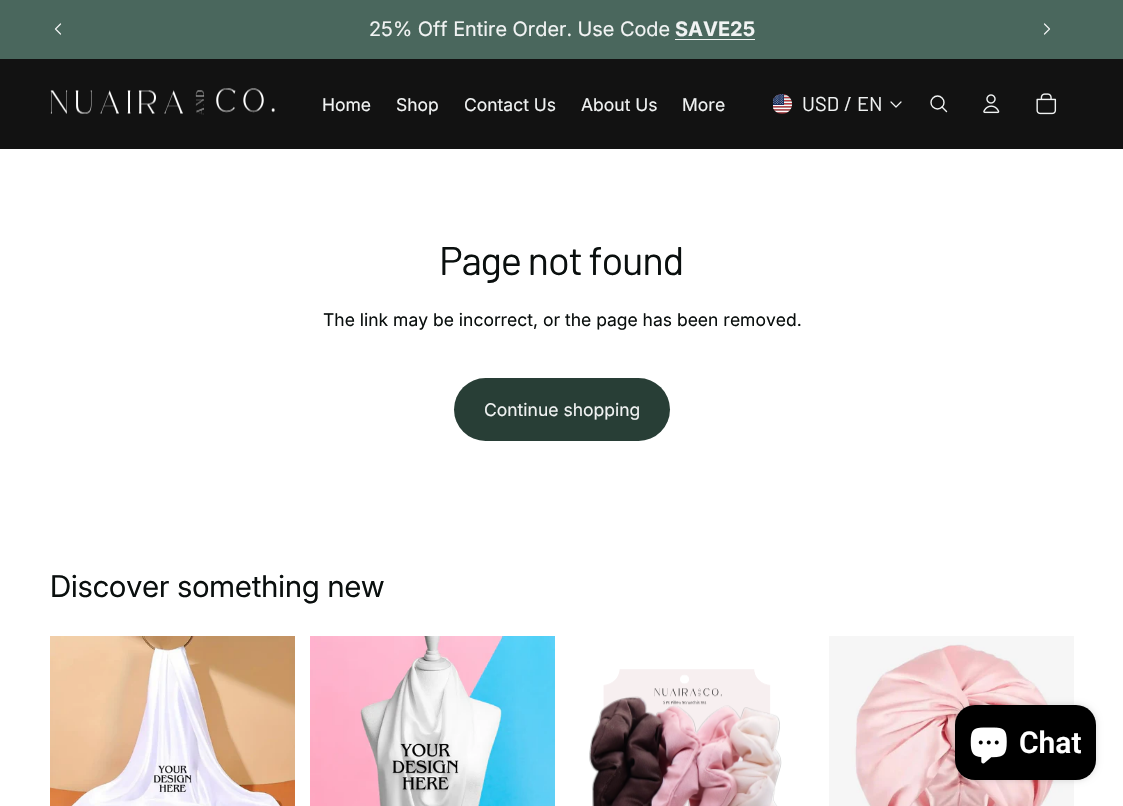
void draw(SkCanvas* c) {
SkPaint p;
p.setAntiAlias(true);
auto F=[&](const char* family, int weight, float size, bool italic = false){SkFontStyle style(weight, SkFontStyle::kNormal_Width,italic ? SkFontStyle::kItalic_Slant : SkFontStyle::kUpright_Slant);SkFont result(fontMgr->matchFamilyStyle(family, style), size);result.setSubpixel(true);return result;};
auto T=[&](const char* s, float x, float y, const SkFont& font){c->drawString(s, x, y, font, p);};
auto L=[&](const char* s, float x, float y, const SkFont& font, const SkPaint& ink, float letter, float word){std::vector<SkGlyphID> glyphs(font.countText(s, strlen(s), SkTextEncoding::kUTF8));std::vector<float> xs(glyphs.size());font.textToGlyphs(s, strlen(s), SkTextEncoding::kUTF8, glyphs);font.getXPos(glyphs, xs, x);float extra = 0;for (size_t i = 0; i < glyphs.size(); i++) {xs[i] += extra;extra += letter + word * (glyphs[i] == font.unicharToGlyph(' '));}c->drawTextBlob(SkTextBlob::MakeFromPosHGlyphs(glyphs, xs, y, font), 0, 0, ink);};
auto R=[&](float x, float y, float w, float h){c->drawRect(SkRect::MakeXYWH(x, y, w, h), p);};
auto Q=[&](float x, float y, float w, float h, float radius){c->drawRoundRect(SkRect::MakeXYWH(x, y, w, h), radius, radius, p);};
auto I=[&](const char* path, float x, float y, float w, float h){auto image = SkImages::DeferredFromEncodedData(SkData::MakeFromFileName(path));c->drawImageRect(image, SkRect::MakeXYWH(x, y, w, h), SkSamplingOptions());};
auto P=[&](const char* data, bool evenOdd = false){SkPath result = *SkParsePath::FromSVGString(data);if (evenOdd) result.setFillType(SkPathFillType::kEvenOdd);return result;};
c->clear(0xffffffff);
p.setColor(0xff4a675d);
R(0,0,1123,59);
auto f1 = F("Inter",400,20);
p.setColor(0xfff1f3f3);
T("25% Off Entire Order. Use Code",369,36,f1);
auto f2 = F("Inter",700,20);
T("SAVE25",675,36,f2);
R(675,39,80,1);
p.setStroke(true);
p.setStrokeWidth(1.2);
p.setStrokeCap(SkPaint::kRound_Cap);
p.setStrokeJoin(SkPaint::kRound_Join);
c->drawPath(P("M60.5 24l-5 5l5 5"),p);
c->drawPath(P("M1044.5 24l5 5l-5 5"),p);
p.setStroke(false);
p.setColor(0xff121212);
R(0,59,1123,90);
I("1.png",50,88,225,27);
auto f3 = F("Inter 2",400,17.5);
p.setColor(0xfff1f3f3);
T("Home",322,111,f3);
T("Shop",396,111,f3);
T("Contact Us",464,111,f3);
T("About Us",581,111,f3);
T("More",682,111,f3);
I("2.png",773,94,20,20);
auto f4 = F("Barlow",400,20);
T("USD",802,111,f4);
T("/",844,111,f4);
T("EN",857,111,f4);
p.setStroke(true);
c->drawPath(P("M901 102l-5 5l-5-5"),p);
p.setStrokeWidth(1.4);
p.setStrokeCap(SkPaint::kButt_Cap);
p.setStrokeJoin(SkPaint::kMiter_Join);
c->drawCircle(937.5,102.5,6.5,p);
p.setStrokeCap(SkPaint::kRound_Cap);
p.setStrokeJoin(SkPaint::kRound_Join);
c->drawPath(P("M942 107l4.5 4.5"),p);
I("3.png",983,94,17,20);
I("4.png",1036,93,21,22);
auto f5 = F("Barlow",400,40);
p.setStroke(false);
p.setColor(0xff0a0f0e);
L("Page not found",439,275,f5,p,-1.25,0);
T("The link may be incorrect, or the page has been removed.",323,326,f3);
p.setColor(0xff283e36);
Q(454,378,216,63,31.5);
p.setColor(0xfff1f3f3);
T("Continue shopping",484,416,f3);
auto f6 = F("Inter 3",400,30);
p.setColor(0xff0a0f0e);
T("Discover something new",50,597,f6);
I("5.png",50,636,245,170);
I("6.png",310,636,245,170);
I("7.png",589,669,193,137);
I("8.png",829,636,245,170);
p.setColor(0x26000000);
p.setMaskFilter(SkMaskFilter::MakeBlur(kNormal_SkBlurStyle, 3));
c->drawRoundRect(SkRect::MakeXYWH(955,705,141,75),20,20,p);
p.setMaskFilter(nullptr);
p.setColor(0xff000000);
Q(955,705,141,75,20);
I("9.png",970,727,37,37);
auto f7 = F("Roboto",600,30);
p.setColor(0xffffffff);
T("Chat",1019,753,f7);
}
